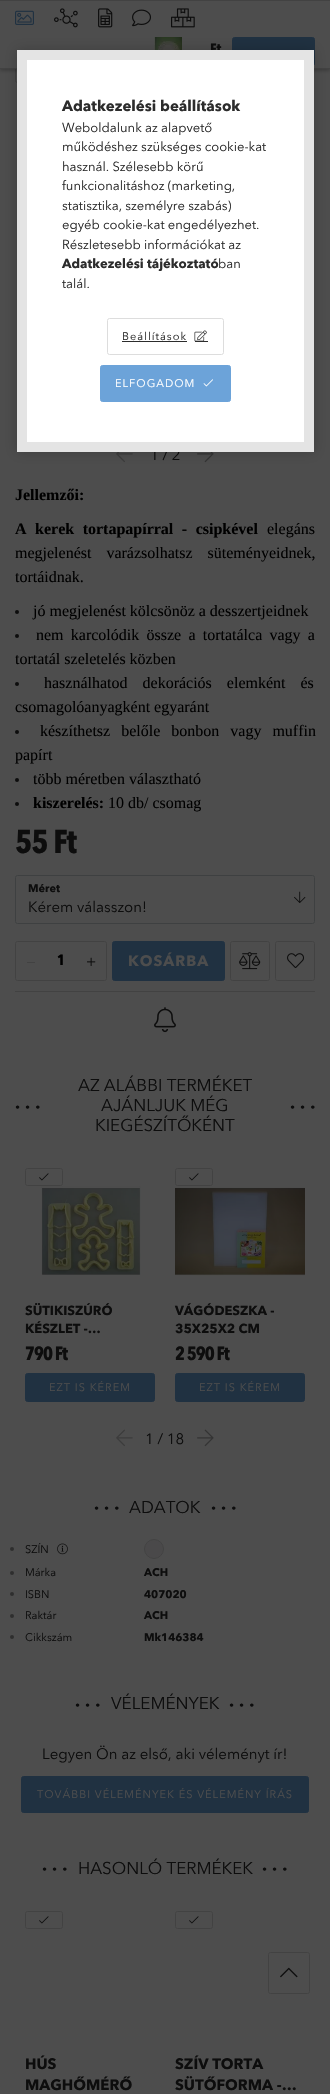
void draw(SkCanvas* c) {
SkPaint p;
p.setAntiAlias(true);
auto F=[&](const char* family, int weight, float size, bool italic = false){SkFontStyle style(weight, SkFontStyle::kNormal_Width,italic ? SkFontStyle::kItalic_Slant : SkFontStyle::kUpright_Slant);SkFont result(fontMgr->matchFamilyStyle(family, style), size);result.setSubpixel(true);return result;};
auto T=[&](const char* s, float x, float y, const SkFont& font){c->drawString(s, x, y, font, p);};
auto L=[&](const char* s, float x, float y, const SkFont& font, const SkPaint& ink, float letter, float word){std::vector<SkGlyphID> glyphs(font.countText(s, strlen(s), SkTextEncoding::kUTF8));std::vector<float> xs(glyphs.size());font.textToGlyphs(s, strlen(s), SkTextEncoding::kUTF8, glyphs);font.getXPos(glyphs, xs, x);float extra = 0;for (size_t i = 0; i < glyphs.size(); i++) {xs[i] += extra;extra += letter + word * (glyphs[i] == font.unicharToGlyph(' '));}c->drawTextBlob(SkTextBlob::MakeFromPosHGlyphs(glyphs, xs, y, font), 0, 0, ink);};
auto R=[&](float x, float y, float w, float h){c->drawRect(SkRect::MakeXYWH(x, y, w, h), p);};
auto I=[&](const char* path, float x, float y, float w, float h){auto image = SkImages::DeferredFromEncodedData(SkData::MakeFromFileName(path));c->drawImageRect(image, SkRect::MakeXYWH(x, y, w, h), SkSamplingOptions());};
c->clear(0xff4d4d4d);
p.setStroke(true);
p.setStrokeWidth(1);
p.setColor(0xff424242);
c->drawRoundRect(SkRect::MakeXYWH(15.5,65.5,101,17),2,2,p);
p.setStroke(false);
p.setColor(0x33000000);
p.setMaskFilter(SkMaskFilter::MakeBlur(kNormal_SkBlurStyle, 1.5));
c->drawRect(SkRect::MakeXYWH(0,2,330,69),p);
p.setMaskFilter(nullptr);
p.setColor(0xff4d4d4d);
R(0,1,330,67);
p.setColor(0xff424242);
R(0,0,330,1);
R(0,68,330,1);
I("1.png",15,10,19,15);
I("2.png",54,8,24,20);
I("3.png",98,8,15,20);
I("4.png",132,9,19,18);
I("5.png",171,8,24,20);
I("6.png",154,37,28,13);
auto f1 = F("Avenir Next",700,15);
p.setColor(0xff0d0d0d);
T("Ft",210,54,f1);
p.setColor(0xff203141);
c->drawRoundRect(SkRect::MakeXYWH(232.5,37.5,82,28),2,2,p);
p.setStroke(true);
c->drawRoundRect(SkRect::MakeXYWH(232.5,37.5,82,28),2,2,p);
auto f2 = F("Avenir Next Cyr",400,15);
p.setStroke(false);
p.setColor(0xff0d0d0d);
T("1 / 2",150,460,f2);
I("7.png",116,452,17,11);
I("8.png",197,452,17,11);
auto f3 = F("Liberation Serif",700,16);
p.setColor(0xff000000);
T("Jellemzői:",15,500,f3);
L("A kerek tortapapírral - csipkével",15,534,f3,p,0,4.5);
auto f4 = F("Liberation Serif",400,16);
T("elegáns",267,534,f4);
L("megjelenést varázsolhatsz süteményeidnek,",15,558,f4,p,0,11);
T("tortáidnak.",15,582,f4);
p.setColor(0xff0d0d0d);
c->drawCircle(17,612,2,p);
p.setColor(0xff000000);
T("jó megjelenést kölcsönöz a desszertjeidnek",33,616,f4);
p.setColor(0xff0d0d0d);
c->drawCircle(17,636,2,p);
p.setColor(0xff000000);
L("nem karcolódik össze a tortatálca vagy a",36,640,f4,p,0,3.25);
T("tortatál szeletelés közben",15,664,f4);
p.setColor(0xff0d0d0d);
c->drawCircle(17,684,2,p);
p.setColor(0xff000000);
L("használhatod dekorációs elemként és",44,688,f4,p,0,11);
T("csomagolóanyagként egyaránt",15,712,f4);
p.setColor(0xff0d0d0d);
c->drawCircle(17,732,2,p);
p.setColor(0xff000000);
L("készíthetsz belőle bonbon vagy muffin",40,736,f4,p,0,7);
T("papírt",15,760,f4);
p.setColor(0xff0d0d0d);
c->drawCircle(17,780,2,p);
p.setColor(0xff000000);
T("több méretben választható",33,784,f4);
p.setColor(0xff0d0d0d);
c->drawCircle(17,804,2,p);
p.setColor(0xff000000);
T("kiszerelés:",33,808,f3);
T("10 db/ csomag",108,808,f4);
auto f5 = F("Avenir Next",700,33);
p.setColor(0xff0d0d0d);
L("55 Ft",15,853,f5,p,-1,0);
p.setStroke(true);
p.setColor(0xff3e4041);
c->drawRoundRect(SkRect::MakeXYWH(15.5,875.5,299,48),2,2,p);
auto f6 = F("Avenir Next Cyr",700,11);
p.setStroke(false);
p.setColor(0xff0d0d0d);
T("Méret",28,892,f6);
I("9.png",294,891,12,12);
T("Kérem válasszon!",28,912,f2);
p.setStroke(true);
p.setColor(0xff424242);
c->drawRoundRect(SkRect::MakeXYWH(15.5,941.5,91,39),2,2,p);
p.setStroke(false);
R(27,962,8,1);
p.setColor(0xff000000);
T("1",57,965,f1);
I("10.png",87,957,9,9);
p.setColor(0xff203141);
c->drawRoundRect(SkRect::MakeXYWH(112.5,941.5,112,39),2,2,p);
p.setStroke(true);
c->drawRoundRect(SkRect::MakeXYWH(112.5,941.5,112,39),2,2,p);
auto f7 = F("Avenir Next Cyr",700,15);
p.setStroke(false);
p.setColor(0xff4d4d4d);
L("KOSÁRBA",128,966,f7,p,1,0);
p.setStroke(true);
p.setColor(0xff424242);
c->drawRoundRect(SkRect::MakeXYWH(230.5,941.5,39,39),2,2,p);
I("11.png",239,952,22,18);
c->drawRoundRect(SkRect::MakeXYWH(275.5,941.5,39,39),2,2,p);
I("12.png",287,953,17,15);
p.setStroke(false);
R(15,991,300,1);
I("13.png",154,1007,22,26);
auto f8 = F("Avenir Next Cyr",400,17);
p.setColor(0xff0d0d0d);
T("AZ ALÁBBI TERMÉKET",78,1091,f8);
auto f9 = F("Avenir Next Cyr",700,17);
L("∙∙∙",15,1112,f9,p,5,0);
T("AJÁNLJUK MÉG",101,1111,f8);
L("∙∙∙",290,1112,f9,p,5,0);
T("KIEGÉSZÍTŐKÉNT",95,1131,f8);
p.setStroke(true);
p.setColor(0xff424242);
c->drawRoundRect(SkRect::MakeXYWH(25.5,1168.5,37,17),2,2,p);
I("14.png",39,1173,10,8);
I("15.png",41,1186,100,89);
auto f10 = F("Avenir Next Cyr",700,13);
p.setStroke(false);
p.setColor(0xff0d0d0d);
T("SÜTIKISZÚRÓ",25,1315,f10);
T("KÉSZLET -…",25,1333,f10);
auto f11 = F("Avenir Next",700,19);
L("790 Ft",25,1360,f11,p,-1,0);
p.setColor(0xff203141);
c->drawRoundRect(SkRect::MakeXYWH(25.5,1373.5,129,28),2,2,p);
p.setStroke(true);
c->drawRoundRect(SkRect::MakeXYWH(25.5,1373.5,129,28),2,2,p);
auto f12 = F("Avenir Next Cyr",400,11);
p.setStroke(false);
p.setColor(0xff4d4d4d);
L("EZT IS KÉREM",49,1391,f12,p,1,0);
p.setStroke(true);
p.setColor(0xff424242);
c->drawRoundRect(SkRect::MakeXYWH(175.5,1168.5,37,17),2,2,p);
I("14.png",189,1173,10,8);
I("16.png",175,1187,130,89);
p.setStroke(false);
p.setColor(0xff0d0d0d);
T("VÁGÓDESZKA -",175,1315,f10);
T("35X25X2 CM",175,1333,f10);
L("2 590 Ft",175,1360,f11,p,-1,0);
p.setColor(0xff203141);
c->drawRoundRect(SkRect::MakeXYWH(175.5,1373.5,129,28),2,2,p);
p.setStroke(true);
c->drawRoundRect(SkRect::MakeXYWH(175.5,1373.5,129,28),2,2,p);
p.setStroke(false);
p.setColor(0xff4d4d4d);
L("EZT IS KÉREM",199,1391,f12,p,1,0);
I("17.png",116,1429,17,18);
I("18.png",197,1429,17,18);
p.setColor(0xff0d0d0d);
T("1 / 18",145,1444,f2);
L("∙∙∙",94,1513,f9,p,5,0);
T("ADATOK",129,1513,f8);
L("∙∙∙",211,1513,f9,p,5,0);
p.setColor(0xff2e2e2e);
c->drawCircle(12,1549,2,p);
p.setColor(0xff0d0d0d);
T("SZÍN",25,1553,f12);
I("19.png",57,1543,11,12);
p.setColor(0xff4a494a);
c->drawCircle(154,1549,9.5,p);
p.setStroke(true);
p.setColor(0xff424242);
c->drawCircle(154,1549,9.5,p);
p.setStroke(false);
p.setColor(0xff2e2e2e);
c->drawCircle(12,1573,2,p);
p.setColor(0xff0d0d0d);
T("Márka",25,1576,f12);
T("ACH",144,1576,f6);
p.setColor(0xff2e2e2e);
c->drawCircle(12,1594,2,p);
p.setColor(0xff0d0d0d);
T("ISBN",25,1598,f12);
T("407020",144,1598,f6);
p.setColor(0xff2e2e2e);
c->drawCircle(12,1616,2,p);
p.setColor(0xff0d0d0d);
T("Raktár",25,1619,f12);
T("ACH",144,1619,f6);
p.setColor(0xff2e2e2e);
c->drawCircle(12,1637,2,p);
p.setColor(0xff0d0d0d);
T("Cikkszám",25,1641,f12);
T("Mk146384",144,1641,f6);
L("∙∙∙",75,1710,f9,p,5,0);
T("VÉLEMÉNYEK",111,1709,f8);
L("∙∙∙",229,1710,f9,p,5,0);
T("Legyen Ön az első, aki véleményt ír!",42,1759,f2);
p.setColor(0xff203141);
c->drawRoundRect(SkRect::MakeXYWH(21.5,1776.5,287,36),2,2,p);
p.setStroke(true);
c->drawRoundRect(SkRect::MakeXYWH(21.5,1776.5,287,36),2,2,p);
p.setStroke(false);
p.setColor(0xff4d4d4d);
L("TOVÁBBI VÉLEMÉNYEK ÉS VÉLEMÉNY ÍRÁS",37,1798,f12,p,1,0);
p.setColor(0xff0d0d0d);
L("∙∙∙",42,1874,f9,p,5,0);
T("HASONLÓ TERMÉKEK",78,1874,f8);
L("∙∙∙",262,1874,f9,p,5,0);
p.setStroke(true);
p.setColor(0xff424242);
c->drawRoundRect(SkRect::MakeXYWH(25.5,1911.5,37,17),2,2,p);
I("14.png",39,1916,10,8);
p.setStroke(false);
p.setColor(0xff0d0d0d);
T("HÚS",25,2069,f7);
T("MAGHŐMÉRŐ",25,2090,f7);
p.setStroke(true);
p.setColor(0xff424242);
c->drawRoundRect(SkRect::MakeXYWH(175.5,1911.5,37,17),2,2,p);
I("14.png",189,1916,10,8);
p.setStroke(false);
p.setColor(0xff0d0d0d);
T("SZÍV TORTA",175,2069,f7);
T("SÜTŐFORMA -…",175,2090,f7);
p.setColor(0x33000000);
p.setMaskFilter(SkMaskFilter::MakeBlur(kNormal_SkBlurStyle, 6));
c->drawRect(SkRect::MakeXYWH(17,50,297,402),p);
p.setMaskFilter(nullptr);
p.setColor(0xffffffff);
c->drawRect(SkRect::MakeXYWH(22,55,287,392),p);
p.setStroke(true);
p.setStrokeWidth(10);
p.setColor(0xffe4e4e4);
c->drawRect(SkRect::MakeXYWH(22,55,287,392),p);
p.setStroke(false);
p.setColor(0xff2c2c2c);
T("Adatkezelési beállítások",62,111,f7);
auto f13 = F("Avenir Next Cyr",400,13);
T("Weboldalunk az alapvető",62,132,f13);
T("működéshez szükséges cookie-kat",62,151,f13);
T("használ. Szélesebb körű",62,171,f13);
T("funkcionalitáshoz (marketing,",62,190,f13);
T("statisztika, személyre szabás)",62,210,f13);
T("egyéb cookie-kat engedélyezhet.",62,229,f13);
T("Részletesebb információkat az",62,249,f13);
T("Adatkezelési tájékoztató",62,268,f10);
T("ban",218,268,f13);
T("talál.",62,288,f13);
p.setStroke(true);
p.setStrokeWidth(1);
p.setColor(0xffdddddd);
c->drawRoundRect(SkRect::MakeXYWH(107.5,318.5,116,36),2,2,p);
p.setStroke(false);
p.setColor(0xff2c2c2c);
L("Beállítások",122,340,f12,p,1,0);
R(122,341,65,1);
R(195,341,13,1);
I("20.png",194,330,13,12);
p.setColor(0xff6ca3d9);
c->drawRoundRect(SkRect::MakeXYWH(100.5,365.5,130,36),2,2,p);
p.setStroke(true);
c->drawRoundRect(SkRect::MakeXYWH(100.5,365.5,130,36),2,2,p);
p.setStroke(false);
p.setColor(0xffffffff);
L("ELFOGADOM",115,387,f12,p,1,0);
I("21.png",203,379,10,8);
p.setStroke(true);
p.setColor(0xff424242);
c->drawRoundRect(SkRect::MakeXYWH(268.5,1952.5,41,41),2,2,p);
I("22.png",280,1967,18,11);
}
